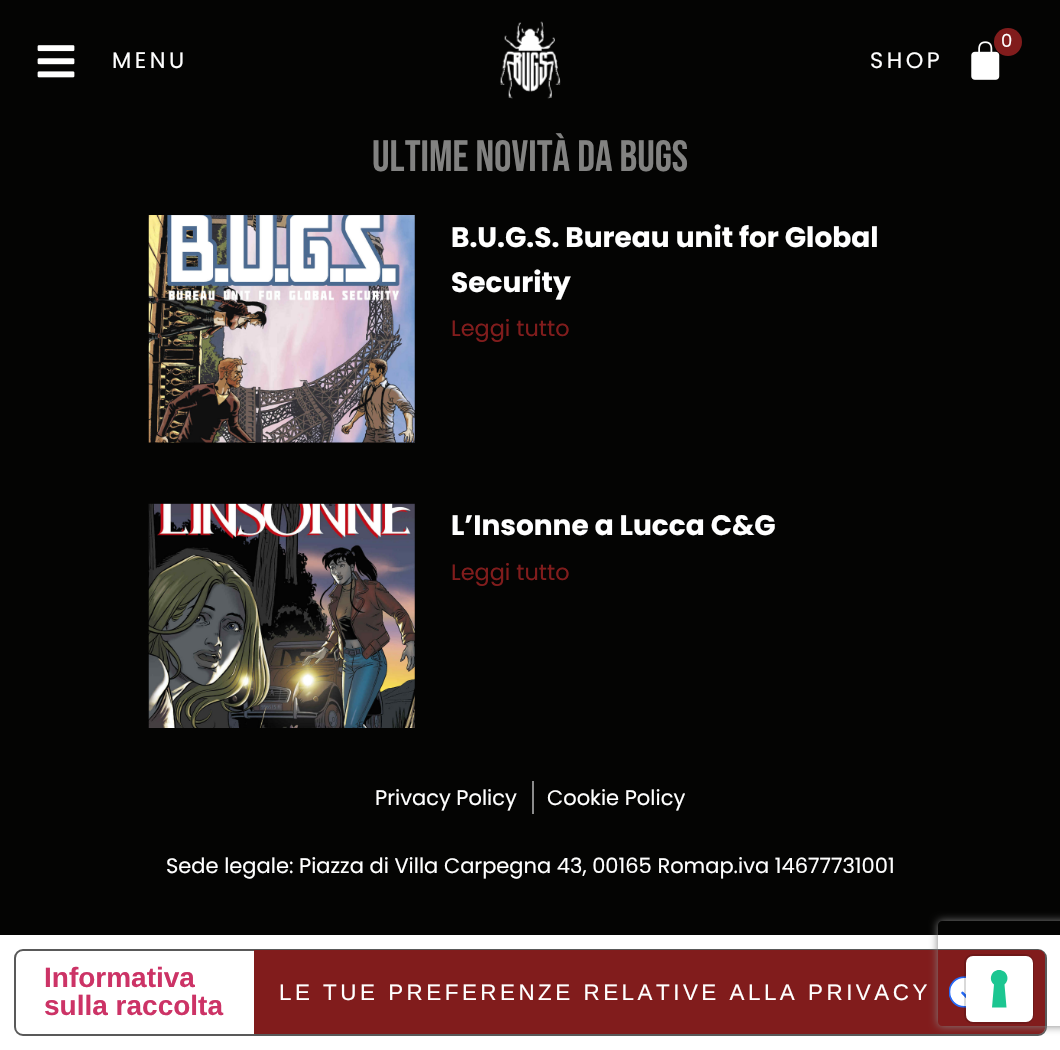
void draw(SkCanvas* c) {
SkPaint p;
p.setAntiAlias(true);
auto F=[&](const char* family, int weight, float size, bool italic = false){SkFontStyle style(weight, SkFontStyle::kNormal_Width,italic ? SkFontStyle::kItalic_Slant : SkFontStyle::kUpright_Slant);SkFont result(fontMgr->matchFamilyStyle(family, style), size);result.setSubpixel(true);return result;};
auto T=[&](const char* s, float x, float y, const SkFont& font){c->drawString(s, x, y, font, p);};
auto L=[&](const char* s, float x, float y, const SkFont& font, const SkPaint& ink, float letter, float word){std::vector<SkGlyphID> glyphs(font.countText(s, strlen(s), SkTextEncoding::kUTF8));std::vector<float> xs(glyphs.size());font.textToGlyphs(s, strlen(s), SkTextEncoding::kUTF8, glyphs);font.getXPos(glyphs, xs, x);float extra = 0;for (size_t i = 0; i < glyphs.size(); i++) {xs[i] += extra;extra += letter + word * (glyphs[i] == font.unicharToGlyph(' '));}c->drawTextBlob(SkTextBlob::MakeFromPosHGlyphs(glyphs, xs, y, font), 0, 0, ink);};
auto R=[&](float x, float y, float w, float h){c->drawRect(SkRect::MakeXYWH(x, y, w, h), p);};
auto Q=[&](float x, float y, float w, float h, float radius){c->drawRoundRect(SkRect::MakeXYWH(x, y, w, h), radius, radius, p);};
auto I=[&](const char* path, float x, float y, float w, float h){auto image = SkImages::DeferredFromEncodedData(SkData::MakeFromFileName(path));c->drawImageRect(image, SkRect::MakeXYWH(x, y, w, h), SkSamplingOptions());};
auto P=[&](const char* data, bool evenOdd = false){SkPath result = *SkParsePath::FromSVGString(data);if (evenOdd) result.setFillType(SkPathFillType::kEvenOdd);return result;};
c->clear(0xffffffff);
p.setColor(0xff040403);
R(0,0,1060,935);
I("1.png",37,45,38,33);
auto f1 = F("Poppins",400,22.4);
p.setColor(0xffffffff);
L("MENU",112,68,f1,p,3.5,0);
I("2.png",500,21,61,78);
I("3.png",971,41,29,39);
p.setColor(0xff811c1c);
c->drawCircle(1008,42,14,p);
auto f2 = F("Poppins",400,18);
p.setColor(0xffffffff);
L("0",1001,47,f2,p,3.5,0);
L("SHOP",870,68,f1,p,3.5,0);
auto f3 = F("Bebas Neue",400,43.75);
p.setColor(0xff828281);
T("Ultime novità da Bugs",372,171,f3);
I("4.png",148,215,267,228);
auto f4 = F("Poppins",700,28);
p.setColor(0xffffffff);
T("B.U.G.S. Bureau unit for Global",451,247,f4);
T("Security",451,292,f4);
p.setColor(0xff811c1c);
T("Leggi tutto",451,336,f1);
I("5.png",148,503,267,225);
p.setColor(0xffffffff);
T("L’Insonne a Lucca C&G",451,535,f4);
p.setColor(0xff811c1c);
T("Leggi tutto",451,580,f1);
auto f5 = F("Poppins",400,21);
p.setColor(0xffffffff);
T("Privacy Policy",375,805,f5);
p.setColor(0xff8b8b8b);
R(532,781,2,33);
p.setColor(0xffffffff);
T("Cookie Policy",547,805,f5);
T("Sede legale: Piazza di Villa Carpegna 43, 00165 Romap.iva 14677731001",166,873,f5);
p.setStroke(true);
p.setStrokeWidth(2);
p.setColor(0xff595959);
c->drawRoundRect(SkRect::MakeXYWH(15,950,1031,85),8,8,p);
p.setStroke(false);
p.setColor(0xff811c1c);
c->drawPath(P("M254 950h784c4 0 7 3 7 7v70c0 4-3 7-7 7h-784z"),p);
c->drawPath(P("M254 950v84h784c4 0 7-3 7-7v-70c0-4-3-7-7-7zm4 4v76h783v-76z",true),p);
I("6.png",949,976,17,32);
c->save();
c->clipPath(P("M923 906h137v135h-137zm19 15h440c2 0 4 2 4 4v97c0 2-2 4-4 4h-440c-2 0-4-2-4-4v-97c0-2 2-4 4-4z",true),true);
p.setColor(0xff808080);
p.setMaskFilter(SkMaskFilter::MakeBlur(kNormal_SkBlurStyle, 4.5));
c->drawRoundRect(SkRect::MakeXYWH(938,921,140,105),4,4,p);
p.setMaskFilter(nullptr);
c->restore();
auto f6 = F("Liberation Sans",700,28);
p.setColor(0xffcc3366);
T("Informativa",44,987,f6);
T("sulla raccolta",44,1015,f6);
auto f7 = F("Liberation Sans",400,22.4);
p.setColor(0xffffffff);
L("LE TUE PREFERENZE RELATIVE ALLA PRIVACY",279,1000,f7,p,3.5,0);
p.setStroke(true);
p.setColor(0x26000000);
c->drawRoundRect(SkRect::MakeXYWH(965,955,68,68),8,8,p);
p.setStroke(false);
p.setColor(0xffffffff);
Q(966,956,67,66,7);
p.setColor(0xff1cc691);
c->drawPath(P("M999 970c8 0 11.5 9.5 5.5 14.5l2 23h-14.5l2-23c-6-5-2.5-14.5 5-14.5z",true),p);
}
